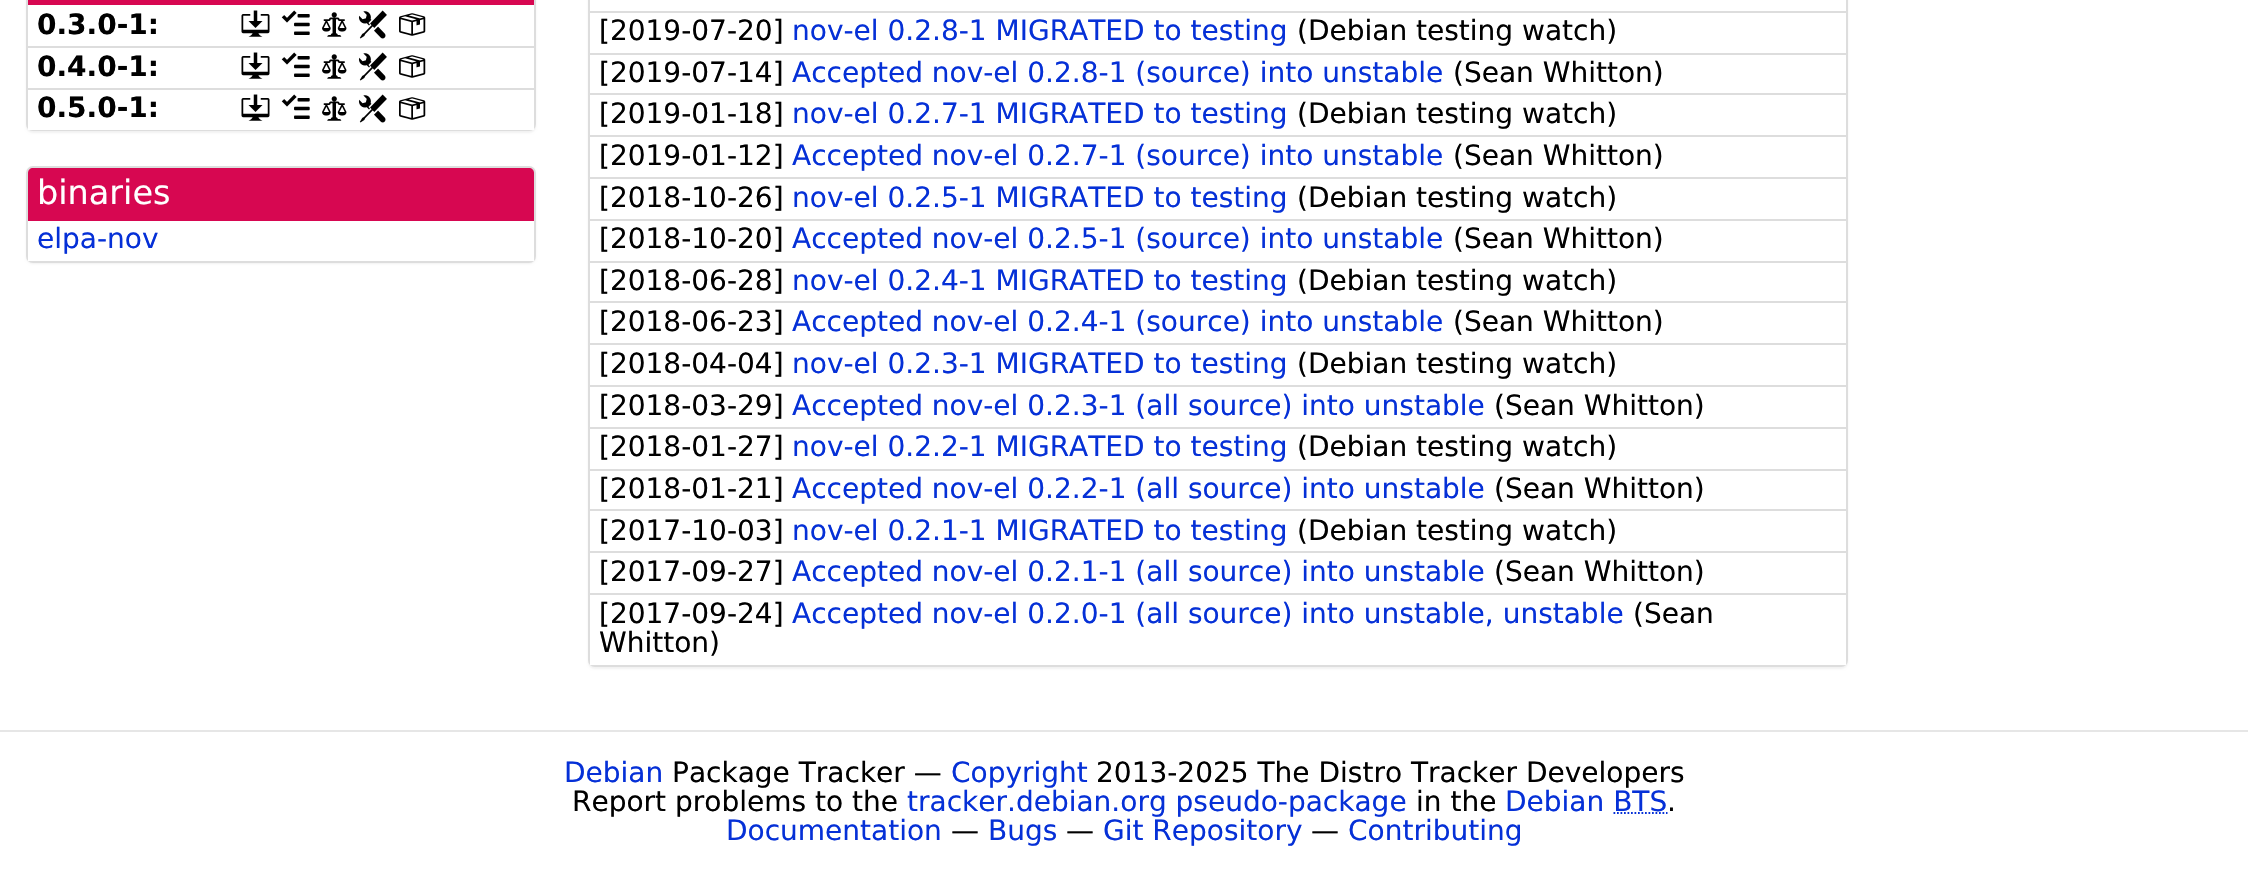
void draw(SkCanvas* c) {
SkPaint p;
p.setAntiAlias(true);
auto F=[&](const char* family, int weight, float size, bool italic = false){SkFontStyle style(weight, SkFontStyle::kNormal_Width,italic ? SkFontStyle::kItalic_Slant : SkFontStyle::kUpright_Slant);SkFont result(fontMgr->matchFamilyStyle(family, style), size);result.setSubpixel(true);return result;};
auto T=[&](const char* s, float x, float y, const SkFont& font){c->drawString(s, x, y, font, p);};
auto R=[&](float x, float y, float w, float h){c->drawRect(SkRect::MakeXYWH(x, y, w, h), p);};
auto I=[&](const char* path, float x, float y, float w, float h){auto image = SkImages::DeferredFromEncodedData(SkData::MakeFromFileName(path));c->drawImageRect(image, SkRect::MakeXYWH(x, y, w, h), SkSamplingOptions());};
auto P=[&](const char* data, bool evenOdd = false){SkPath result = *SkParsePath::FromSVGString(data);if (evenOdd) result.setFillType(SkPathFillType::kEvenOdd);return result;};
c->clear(0xffffffff);
p.setColor(0x0d000000);
p.setMaskFilter(SkMaskFilter::MakeBlur(kNormal_SkBlurStyle, 1));
c->drawRoundRect(SkRect::MakeXYWH(26,-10,510,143),7,7,p);
p.setMaskFilter(nullptr);
p.setStroke(true);
p.setStrokeWidth(2);
p.setColor(0xffdddddd);
c->drawRoundRect(SkRect::MakeXYWH(27,-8,508,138),6,6,p);
p.setStroke(false);
p.setColor(0xffd70751);
R(28,0,506,5);
p.setColor(0xffffffff);
R(28,5,506,125);
auto f1 = F("DejaVu Sans",700,28);
p.setColor(0xff000000);
T("0.3.0-1:",37,34,f1);
I("1.png",241,10,29,27);
I("2.png",281,10,29,25);
I("3.png",322,12,25,25);
I("4.png",358,10,29,29);
I("5.png",399,13,27,23);
p.setColor(0xffdddddd);
R(28,46,506,2);
p.setColor(0xff000000);
T("0.4.0-1:",37,76,f1);
I("1.png",241,52,29,27);
I("2.png",281,52,29,25);
I("3.png",322,54,25,25);
I("4.png",358,52,29,29);
I("5.png",399,55,27,23);
p.setColor(0xffdddddd);
R(28,88,506,2);
p.setColor(0xff000000);
T("0.5.0-1:",37,117,f1);
I("1.png",241,94,29,27);
I("2.png",281,94,29,25);
I("3.png",322,96,25,25);
I("4.png",358,94,29,29);
I("5.png",399,97,27,23);
p.setColor(0x0d000000);
p.setMaskFilter(SkMaskFilter::MakeBlur(kNormal_SkBlurStyle, 1));
c->drawRoundRect(SkRect::MakeXYWH(26,168,510,96),7,7,p);
p.setMaskFilter(nullptr);
p.setStroke(true);
p.setColor(0xffdddddd);
c->drawRoundRect(SkRect::MakeXYWH(27,167,508,95),6,6,p);
p.setStroke(false);
p.setColor(0xffd70751);
c->drawPath(P("M33 168h496c3 0 5 2 5 5v49h-506v-49c0-3 2-5 5-5z"),p);
auto f2 = F("DejaVu Sans",400,33.5);
p.setColor(0xffffffff);
T("binaries",37,204,f2);
R(28,221,506,40);
auto f3 = F("DejaVu Sans",400,28);
p.setColor(0xff0530d7);
T("elpa-nov",37,248,f3);
p.setColor(0x0d000000);
p.setMaskFilter(SkMaskFilter::MakeBlur(kNormal_SkBlurStyle, 1));
c->drawRoundRect(SkRect::MakeXYWH(588,-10,1260,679),7,7,p);
p.setMaskFilter(nullptr);
p.setStroke(true);
p.setColor(0xffdddddd);
c->drawRoundRect(SkRect::MakeXYWH(589,-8,1258,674),6,6,p);
p.setStroke(false);
p.setColor(0xffffffff);
R(590,0,1256,665);
p.setColor(0xffdddddd);
R(590,11,1256,2);
p.setColor(0xff000000);
T("[2019-07-20]",599,40,f3);
p.setColor(0xff0530d7);
T("nov-el 0.2.8-1 MIGRATED to testing",792,40,f3);
p.setColor(0xff000000);
T("(Debian testing watch)",1297,40,f3);
p.setColor(0xffdddddd);
R(590,53,1256,2);
R(590,93,1256,2);
p.setColor(0xff000000);
T("[2019-07-14]",599,82,f3);
p.setColor(0xff0530d7);
T("Accepted nov-el 0.2.8-1 (source) into unstable",792,82,f3);
p.setColor(0xff000000);
T("(Sean Whitton)",1453,82,f3);
p.setColor(0xffdddddd);
R(590,135,1256,2);
p.setColor(0xff000000);
T("[2019-01-18]",599,123,f3);
p.setColor(0xff0530d7);
T("nov-el 0.2.7-1 MIGRATED to testing",792,123,f3);
p.setColor(0xff000000);
T("(Debian testing watch)",1297,123,f3);
p.setColor(0xffdddddd);
R(590,177,1256,2);
p.setColor(0xff000000);
T("[2019-01-12]",599,165,f3);
p.setColor(0xff0530d7);
T("Accepted nov-el 0.2.7-1 (source) into unstable",792,165,f3);
p.setColor(0xff000000);
T("(Sean Whitton)",1453,165,f3);
p.setColor(0xffdddddd);
R(590,219,1256,2);
p.setColor(0xff000000);
T("[2018-10-26]",599,207,f3);
p.setColor(0xff0530d7);
T("nov-el 0.2.5-1 MIGRATED to testing",792,207,f3);
p.setColor(0xff000000);
T("(Debian testing watch)",1297,207,f3);
p.setColor(0xffdddddd);
R(590,261,1256,2);
p.setColor(0xff000000);
T("[2018-10-20]",599,248,f3);
p.setColor(0xff0530d7);
T("Accepted nov-el 0.2.5-1 (source) into unstable",792,248,f3);
p.setColor(0xff000000);
T("(Sean Whitton)",1453,248,f3);
p.setColor(0xffdddddd);
R(590,301,1256,2);
p.setColor(0xff000000);
T("[2018-06-28]",599,290,f3);
p.setColor(0xff0530d7);
T("nov-el 0.2.4-1 MIGRATED to testing",792,290,f3);
p.setColor(0xff000000);
T("(Debian testing watch)",1297,290,f3);
p.setColor(0xffdddddd);
R(590,343,1256,2);
p.setColor(0xff000000);
T("[2018-06-23]",599,331,f3);
p.setColor(0xff0530d7);
T("Accepted nov-el 0.2.4-1 (source) into unstable",792,331,f3);
p.setColor(0xff000000);
T("(Sean Whitton)",1453,331,f3);
p.setColor(0xffdddddd);
R(590,385,1256,2);
p.setColor(0xff000000);
T("[2018-04-04]",599,373,f3);
p.setColor(0xff0530d7);
T("nov-el 0.2.3-1 MIGRATED to testing",792,373,f3);
p.setColor(0xff000000);
T("(Debian testing watch)",1297,373,f3);
p.setColor(0xffdddddd);
R(590,427,1256,2);
p.setColor(0xff000000);
T("[2018-03-29]",599,415,f3);
p.setColor(0xff0530d7);
T("Accepted nov-el 0.2.3-1 (all source) into unstable",792,415,f3);
p.setColor(0xff000000);
T("(Sean Whitton)",1494,415,f3);
p.setColor(0xffdddddd);
R(590,469,1256,2);
p.setColor(0xff000000);
T("[2018-01-27]",599,456,f3);
p.setColor(0xff0530d7);
T("nov-el 0.2.2-1 MIGRATED to testing",792,456,f3);
p.setColor(0xff000000);
T("(Debian testing watch)",1297,456,f3);
p.setColor(0xffdddddd);
R(590,509,1256,2);
p.setColor(0xff000000);
T("[2018-01-21]",599,498,f3);
p.setColor(0xff0530d7);
T("Accepted nov-el 0.2.2-1 (all source) into unstable",792,498,f3);
p.setColor(0xff000000);
T("(Sean Whitton)",1494,498,f3);
p.setColor(0xffdddddd);
R(590,551,1256,2);
p.setColor(0xff000000);
T("[2017-10-03]",599,540,f3);
p.setColor(0xff0530d7);
T("nov-el 0.2.1-1 MIGRATED to testing",792,540,f3);
p.setColor(0xff000000);
T("(Debian testing watch)",1297,540,f3);
T("[2017-09-27]",599,581,f3);
p.setColor(0xff0530d7);
T("Accepted nov-el 0.2.1-1 (all source) into unstable",792,581,f3);
p.setColor(0xff000000);
T("(Sean Whitton)",1494,581,f3);
p.setColor(0xffdddddd);
R(590,593,1256,2);
p.setColor(0xff000000);
T("[2017-09-24]",599,623,f3);
p.setColor(0xff0530d7);
T("Accepted nov-el 0.2.0-1 (all source) into unstable, unstable",792,623,f3);
p.setColor(0xff000000);
T("(Sean",1633,623,f3);
T("Whitton)",599,652,f3);
p.setColor(0xffe6e6e6);
R(0,730,2248,2);
p.setColor(0xff0530d7);
T("Debian",564,782,f3);
p.setColor(0xff000000);
T("Package Tracker —",672,782,f3);
p.setColor(0xff0530d7);
T("Copyright",951,782,f3);
p.setColor(0xff000000);
T("2013-2025 The Distro Tracker Developers",1096,782,f3);
T("Report problems to the",572,811,f3);
p.setColor(0xff0530d7);
T("tracker.debian.org pseudo-package",907,811,f3);
p.setColor(0xff000000);
T("in the",1416,811,f3);
p.setColor(0xff0530d7);
T("Debian BTS",1505,811,f3);
p.setStroke(true);
p.setStrokeWidth(1.8);
p.setPathEffect(SkDashPathEffect::Make({{1.75f,1.75f}}, 0));
c->drawPath(P("M1613.5 813h54"),p);
p.setPathEffect(nullptr);
p.setStroke(false);
p.setColor(0xff000000);
T(".",1667,811,f3);
p.setColor(0xff0530d7);
T("Documentation",726,840,f3);
p.setColor(0xff000000);
T("—",951,840,f3);
p.setColor(0xff0530d7);
T("Bugs",988,840,f3);
p.setColor(0xff000000);
T("—",1066,840,f3);
p.setColor(0xff0530d7);
T("Git Repository",1103,840,f3);
p.setColor(0xff000000);
T("—",1311,840,f3);
p.setColor(0xff0530d7);
T("Contributing",1348,840,f3);
}
